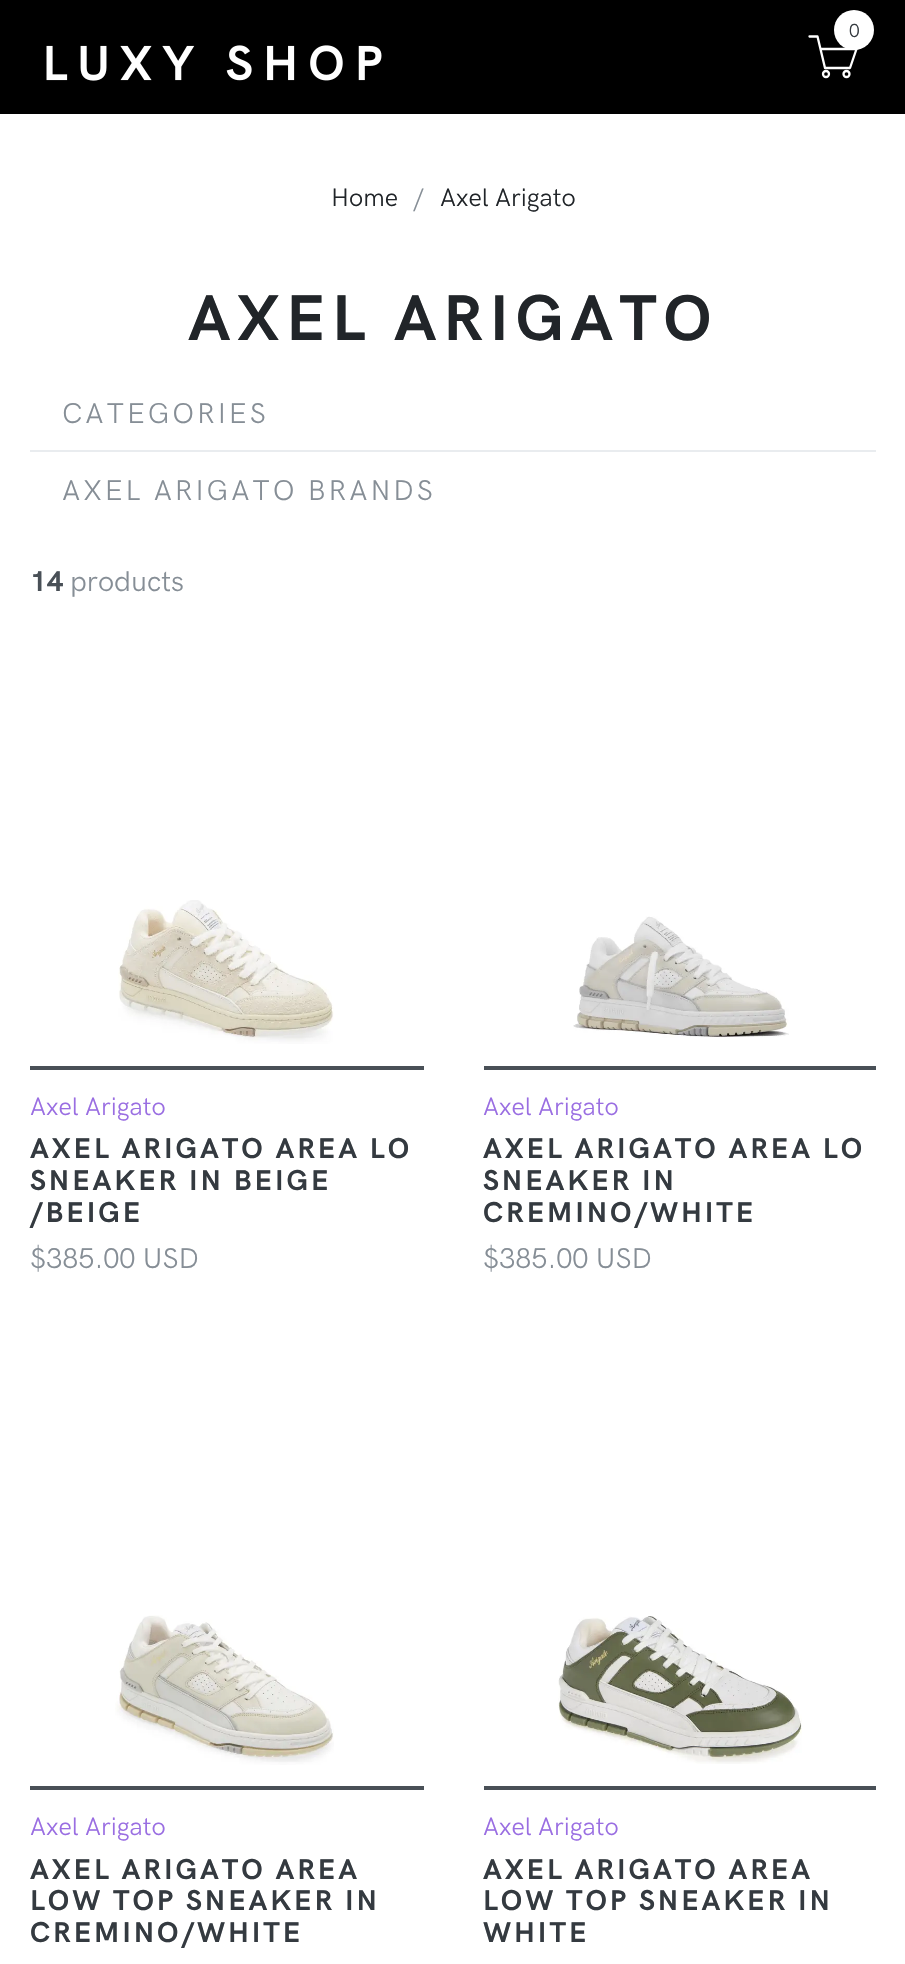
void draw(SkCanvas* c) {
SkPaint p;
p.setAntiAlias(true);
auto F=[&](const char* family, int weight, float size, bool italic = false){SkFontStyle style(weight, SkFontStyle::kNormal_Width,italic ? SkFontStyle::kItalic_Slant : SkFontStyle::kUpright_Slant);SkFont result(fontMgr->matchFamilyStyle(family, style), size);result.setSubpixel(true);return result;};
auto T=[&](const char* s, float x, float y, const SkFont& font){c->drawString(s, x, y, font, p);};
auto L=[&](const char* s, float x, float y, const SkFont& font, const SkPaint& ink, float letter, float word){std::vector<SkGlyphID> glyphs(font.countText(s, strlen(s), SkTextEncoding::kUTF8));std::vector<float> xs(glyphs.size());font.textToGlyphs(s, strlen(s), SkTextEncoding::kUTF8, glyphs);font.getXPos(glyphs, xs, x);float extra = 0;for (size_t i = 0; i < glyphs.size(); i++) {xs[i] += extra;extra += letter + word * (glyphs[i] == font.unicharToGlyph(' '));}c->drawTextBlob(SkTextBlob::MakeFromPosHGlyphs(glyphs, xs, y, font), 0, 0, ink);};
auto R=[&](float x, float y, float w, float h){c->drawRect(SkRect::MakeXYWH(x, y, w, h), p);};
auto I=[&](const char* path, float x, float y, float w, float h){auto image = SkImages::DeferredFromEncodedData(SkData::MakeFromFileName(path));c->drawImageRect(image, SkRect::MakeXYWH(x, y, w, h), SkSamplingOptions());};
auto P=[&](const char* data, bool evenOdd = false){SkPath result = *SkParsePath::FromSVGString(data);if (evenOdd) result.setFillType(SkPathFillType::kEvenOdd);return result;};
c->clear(0xffffffff);
p.setColor(0xff000000);
R(0,0,905,114);
p.setStroke(true);
p.setStrokeWidth(2.3);
p.setStrokeCap(SkPaint::kRound_Cap);
p.setStrokeJoin(SkPaint::kRound_Join);
p.setColor(0xffffffff);
c->drawPath(P("M809.5 36.5h8l7.5 31.5h25l6.5-19h-36"),p);
p.setStroke(false);
c->drawCircle(854,30,20,p);
auto f1 = F("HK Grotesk",400,19);
p.setColor(0xff343a40);
T("0",849,37,f1);
p.setStroke(true);
p.setStrokeCap(SkPaint::kButt_Cap);
p.setStrokeJoin(SkPaint::kMiter_Join);
p.setColor(0xffffffff);
c->drawCircle(826,74,3,p);
c->drawCircle(846.5,74,3,p);
I("1.png",46,45,336,36);
auto f2 = F("HK Grotesk",400,25.25);
p.setStroke(false);
p.setColor(0xff212529);
T("Home",331,206,f2);
p.setColor(0xff868e96);
T("/",413,206,f2);
p.setColor(0xff212529);
T("Axel Arigato",440,206,f2);
auto f3 = F("HK Grotesk",700,64.75);
L("AXEL ARIGATO",188,340,f3,p,6.5,0);
p.setColor(0xffe9ecef);
R(30,450,846,2);
auto f4 = F("HK Grotesk",400,28.75);
p.setColor(0xff868e96);
L("CATEGORIES",62,423,f4,p,2.9,0);
L("AXEL ARIGATO BRANDS",62,500,f4,p,2.9,0);
auto f5 = F("HK Grotesk",700,28.75);
p.setColor(0xff495057);
T("14",30,591,f5);
p.setColor(0xff868e96);
T("products",70,591,f4);
p.setColor(0xff495057);
R(30,1066,394,4);
I("2.png",118,900,216,144);
p.setColor(0xff9a6ee2);
T("Axel Arigato",30,1115,f2);
p.setColor(0xff343a40);
L("AXEL ARIGATO AREA LO",30,1158,f5,p,2.9,0);
L("SNEAKER IN BEIGE",30,1190,f5,p,2.9,0);
L("/BEIGE",30,1222,f5,p,2.9,0);
p.setColor(0xff868e96);
T("$385.00 USD",30,1268,f4);
p.setColor(0xff495057);
R(484,1066,392,4);
I("3.png",573,916,216,122);
p.setColor(0xff9a6ee2);
T("Axel Arigato",483,1115,f2);
p.setColor(0xff343a40);
L("AXEL ARIGATO AREA LO",483,1158,f5,p,2.9,0);
L("SNEAKER IN",483,1190,f5,p,2.9,0);
L("CREMINO/WHITE",483,1222,f5,p,2.9,0);
p.setColor(0xff868e96);
T("$385.00 USD",483,1268,f4);
p.setColor(0xff495057);
R(30,1786,394,4);
I("4.png",115,1615,219,150);
p.setColor(0xff9a6ee2);
T("Axel Arigato",30,1835,f2);
p.setColor(0xff343a40);
L("AXEL ARIGATO AREA",30,1879,f5,p,2.9,0);
L("LOW TOP SNEAKER IN",30,1910,f5,p,2.9,0);
L("CREMINO/WHITE",30,1942,f5,p,2.9,0);
p.setColor(0xff495057);
R(484,1786,392,4);
I("5.png",558,1616,244,148);
p.setColor(0xff9a6ee2);
T("Axel Arigato",483,1835,f2);
p.setColor(0xff343a40);
L("AXEL ARIGATO AREA",483,1879,f5,p,2.9,0);
L("LOW TOP SNEAKER IN",483,1910,f5,p,2.9,0);
L("WHITE",483,1942,f5,p,2.9,0);
}
